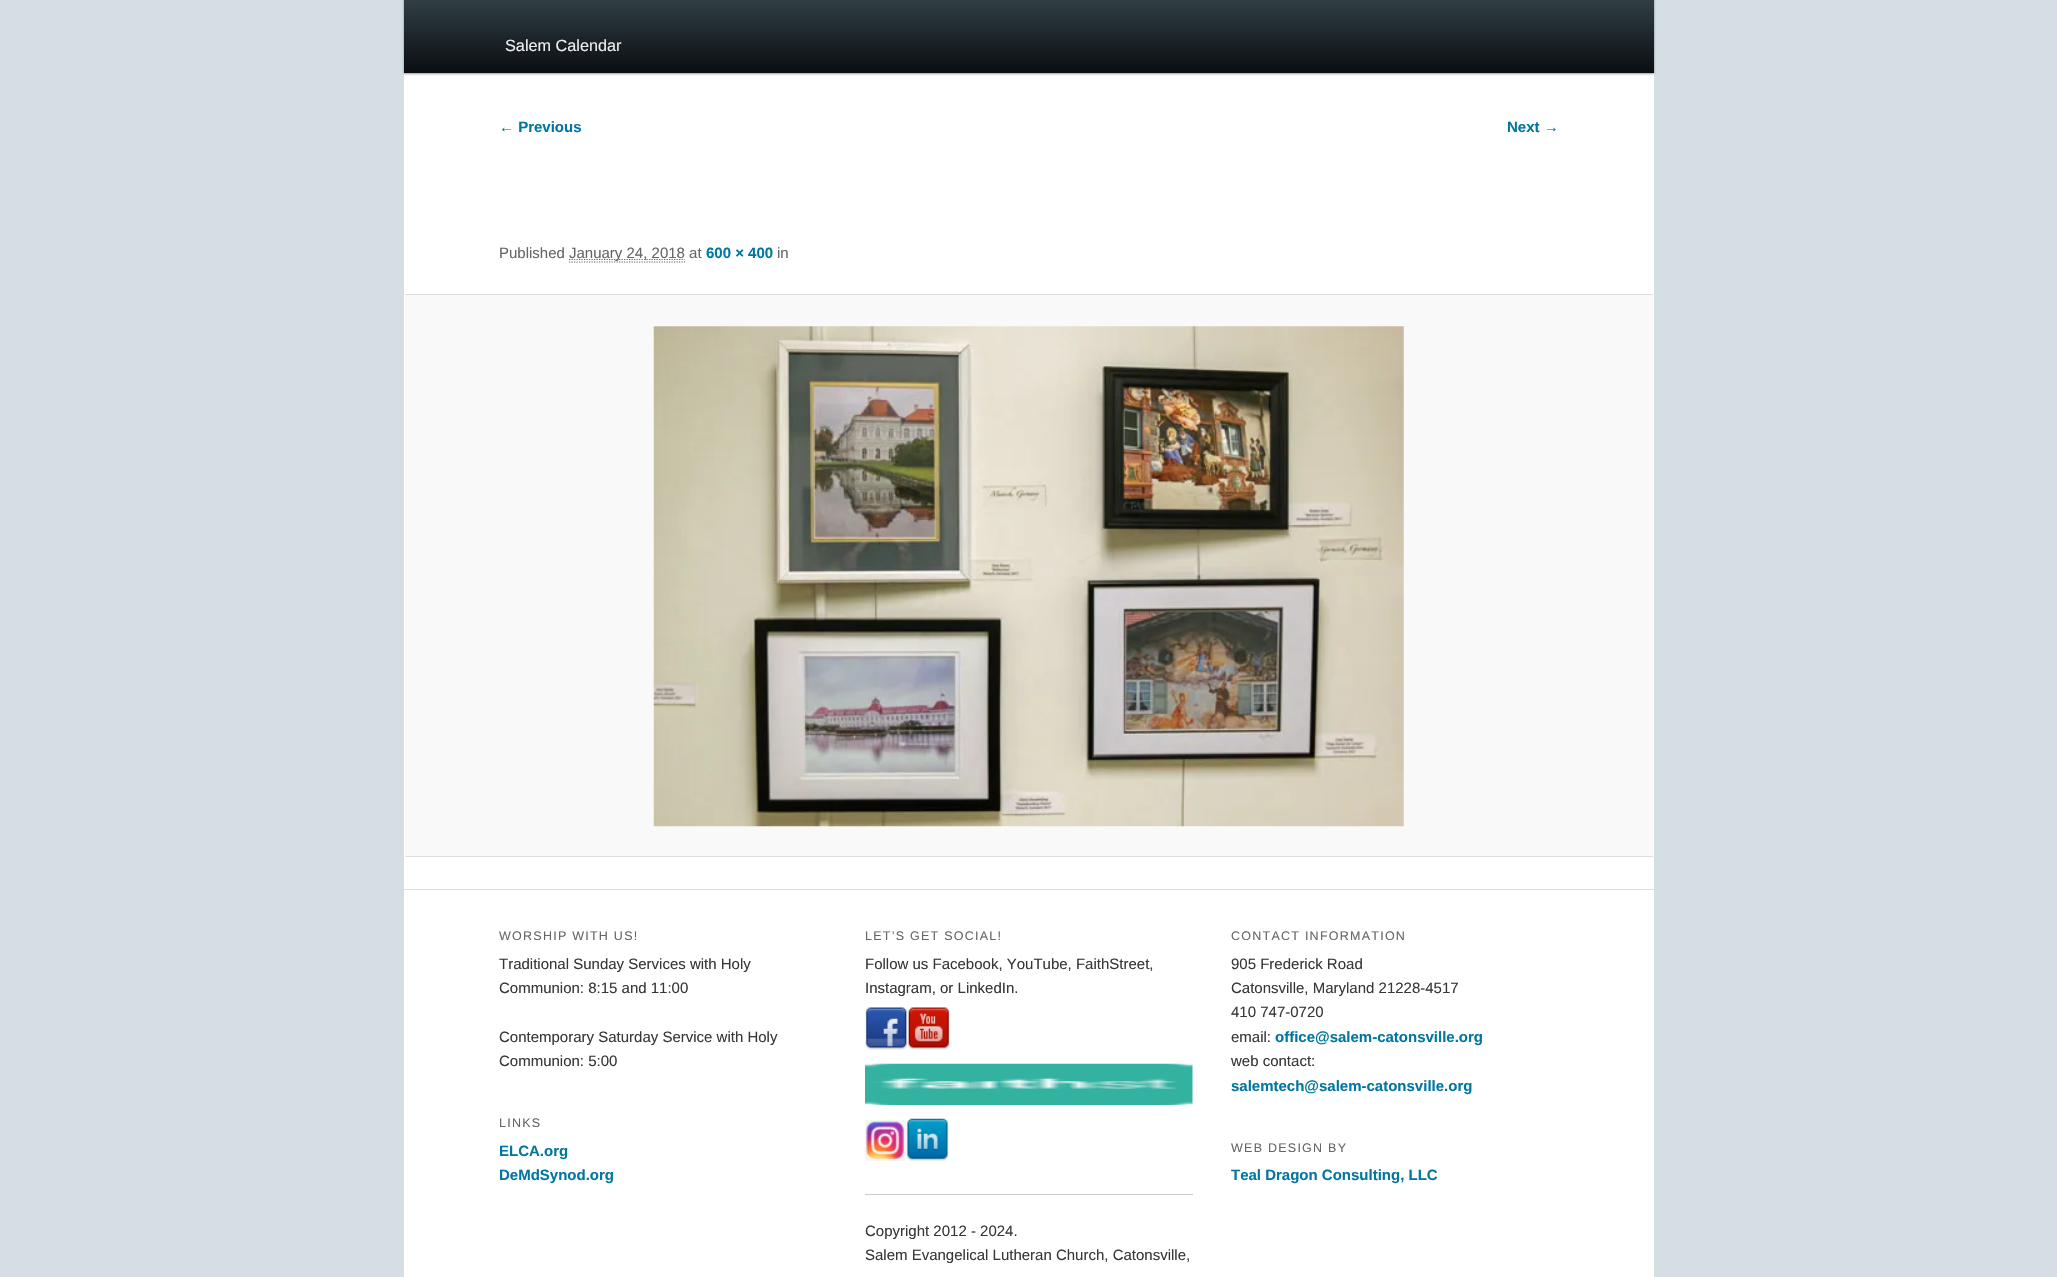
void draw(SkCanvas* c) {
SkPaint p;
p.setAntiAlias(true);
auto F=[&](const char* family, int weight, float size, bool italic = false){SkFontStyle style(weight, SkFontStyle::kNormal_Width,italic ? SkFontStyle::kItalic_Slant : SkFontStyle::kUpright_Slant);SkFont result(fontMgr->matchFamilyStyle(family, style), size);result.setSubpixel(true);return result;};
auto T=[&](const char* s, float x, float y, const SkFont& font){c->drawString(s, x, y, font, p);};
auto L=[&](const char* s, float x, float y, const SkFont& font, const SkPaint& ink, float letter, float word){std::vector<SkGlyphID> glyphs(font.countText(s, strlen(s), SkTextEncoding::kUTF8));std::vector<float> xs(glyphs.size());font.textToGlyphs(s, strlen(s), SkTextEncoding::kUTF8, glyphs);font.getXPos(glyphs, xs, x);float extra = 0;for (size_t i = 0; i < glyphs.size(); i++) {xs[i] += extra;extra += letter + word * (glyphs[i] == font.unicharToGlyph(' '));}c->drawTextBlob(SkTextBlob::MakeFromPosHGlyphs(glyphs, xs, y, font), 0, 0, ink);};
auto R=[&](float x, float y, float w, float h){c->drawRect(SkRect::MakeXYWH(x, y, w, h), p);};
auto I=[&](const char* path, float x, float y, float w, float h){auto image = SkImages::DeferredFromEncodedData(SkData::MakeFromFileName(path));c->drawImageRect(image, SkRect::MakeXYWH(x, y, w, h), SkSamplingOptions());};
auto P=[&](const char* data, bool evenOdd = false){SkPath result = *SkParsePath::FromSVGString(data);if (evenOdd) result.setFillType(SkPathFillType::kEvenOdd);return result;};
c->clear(0xffd5dee3);
p.setColor(0xffffffff);
R(404,73,1250,1204);
p.setColor(0x66000000);
p.setMaskFilter(SkMaskFilter::MakeBlur(kNormal_SkBlurStyle, 1));
c->drawRect(SkRect::MakeXYWH(404,-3,1250,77),p);
p.setMaskFilter(nullptr);
{
const SkColor colors[] = {0xff43555c,0xff0a0e12};
const float stops[] = {0,1};
const SkPoint ends[] = {{1029,-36}, {1029,73}};
p.setShader(SkGradientShader::MakeLinear(ends, colors, stops, 2, SkTileMode::kClamp));
p.setAlpha(255);
}
R(404,0,1250,73);
auto f1 = F("Liberation Sans",400,16.25);
p.setShader(nullptr);
p.setColor(0xffeeeeee);
T("Salem Calendar",505,51,f1);
auto f2 = F("Liberation Sans",700,15);
p.setColor(0xff0176a0);
T("← Previous",499,132,f2);
T("Next →",1507,132,f2);
auto f3 = F("Liberation Sans",400,15);
p.setColor(0xff666666);
T("Published",499,258,f3);
p.setStroke(true);
p.setStrokeWidth(1.2);
p.setPathEffect(SkDashPathEffect::Make({{1.25f,1.25f}}, 0));
c->drawPath(P("M569 262h116"),p);
p.setPathEffect(nullptr);
p.setPathEffect(SkDashPathEffect::Make({{1.25f,1.25f}}, 0));
c->drawPath(P("M569 259.5h115.5"),p);
p.setPathEffect(nullptr);
p.setStroke(false);
T("January 24, 2018 at",569,258,f3);
p.setColor(0xff0176a0);
T("600 × 400",706,258,f2);
p.setColor(0xff666666);
T("in",777,258,f3);
p.setColor(0xfff9f9f9);
R(405,295,1248,561);
p.setColor(0xffdddddd);
R(405,294,1248,1);
R(405,856,1248,1);
I("1.png",653,326,751,501);
R(404,889,1250,1);
auto f4 = F("Liberation Sans",400,12.5);
p.setColor(0xff666666);
L("WORSHIP WITH US!",499,940,f4,p,1.25,0);
p.setColor(0xff373737);
T("Traditional Sunday Services with Holy",499,969,f3);
T("Communion: 8:15 and 11:00",499,993,f3);
T("Contemporary Saturday Service with Holy",499,1042,f3);
T("Communion: 5:00",499,1066,f3);
p.setColor(0xff666666);
L("LINKS",499,1127,f4,p,1.25,0);
p.setColor(0xff0176a0);
T("ELCA.org",499,1156,f2);
T("DeMdSynod.org",499,1180,f2);
p.setColor(0xff666666);
L("LET’S GET SOCIAL!",865,940,f4,p,1.25,0);
p.setColor(0xff373737);
T("Follow us Facebook, YouTube, FaithStreet,",865,969,f3);
T("Instagram, or LinkedIn.",865,993,f3);
I("2.png",865,1007,43,43);
I("3.png",907,1007,43,43);
I("4.png",865,1063,328,42);
I("5.png",865,1120,41,41);
I("6.png",906,1118,43,43);
p.setColor(0xffcccccc);
R(865,1194,328,1);
p.setColor(0xff373737);
T("Copyright 2012 - 2024.",865,1236,f3);
T("Salem Evangelical Lutheran Church, Catonsville,",865,1260,f3);
p.setColor(0xff666666);
L("CONTACT INFORMATION",1231,940,f4,p,1.25,0);
p.setColor(0xff373737);
T("905 Frederick Road",1231,969,f3);
T("Catonsville, Maryland 21228-4517",1231,993,f3);
T("410 747-0720",1231,1017,f3);
T("email:",1231,1042,f3);
p.setColor(0xff0176a0);
T("office@salem-catonsville.org",1275,1042,f2);
p.setColor(0xff373737);
T("web contact:",1231,1066,f3);
p.setColor(0xff0176a0);
T("salemtech@salem-catonsville.org",1231,1091,f2);
p.setColor(0xff666666);
L("WEB DESIGN BY",1231,1152,f4,p,1.25,0);
p.setColor(0xff0176a0);
T("Teal Dragon Consulting, LLC",1231,1180,f2);
}
